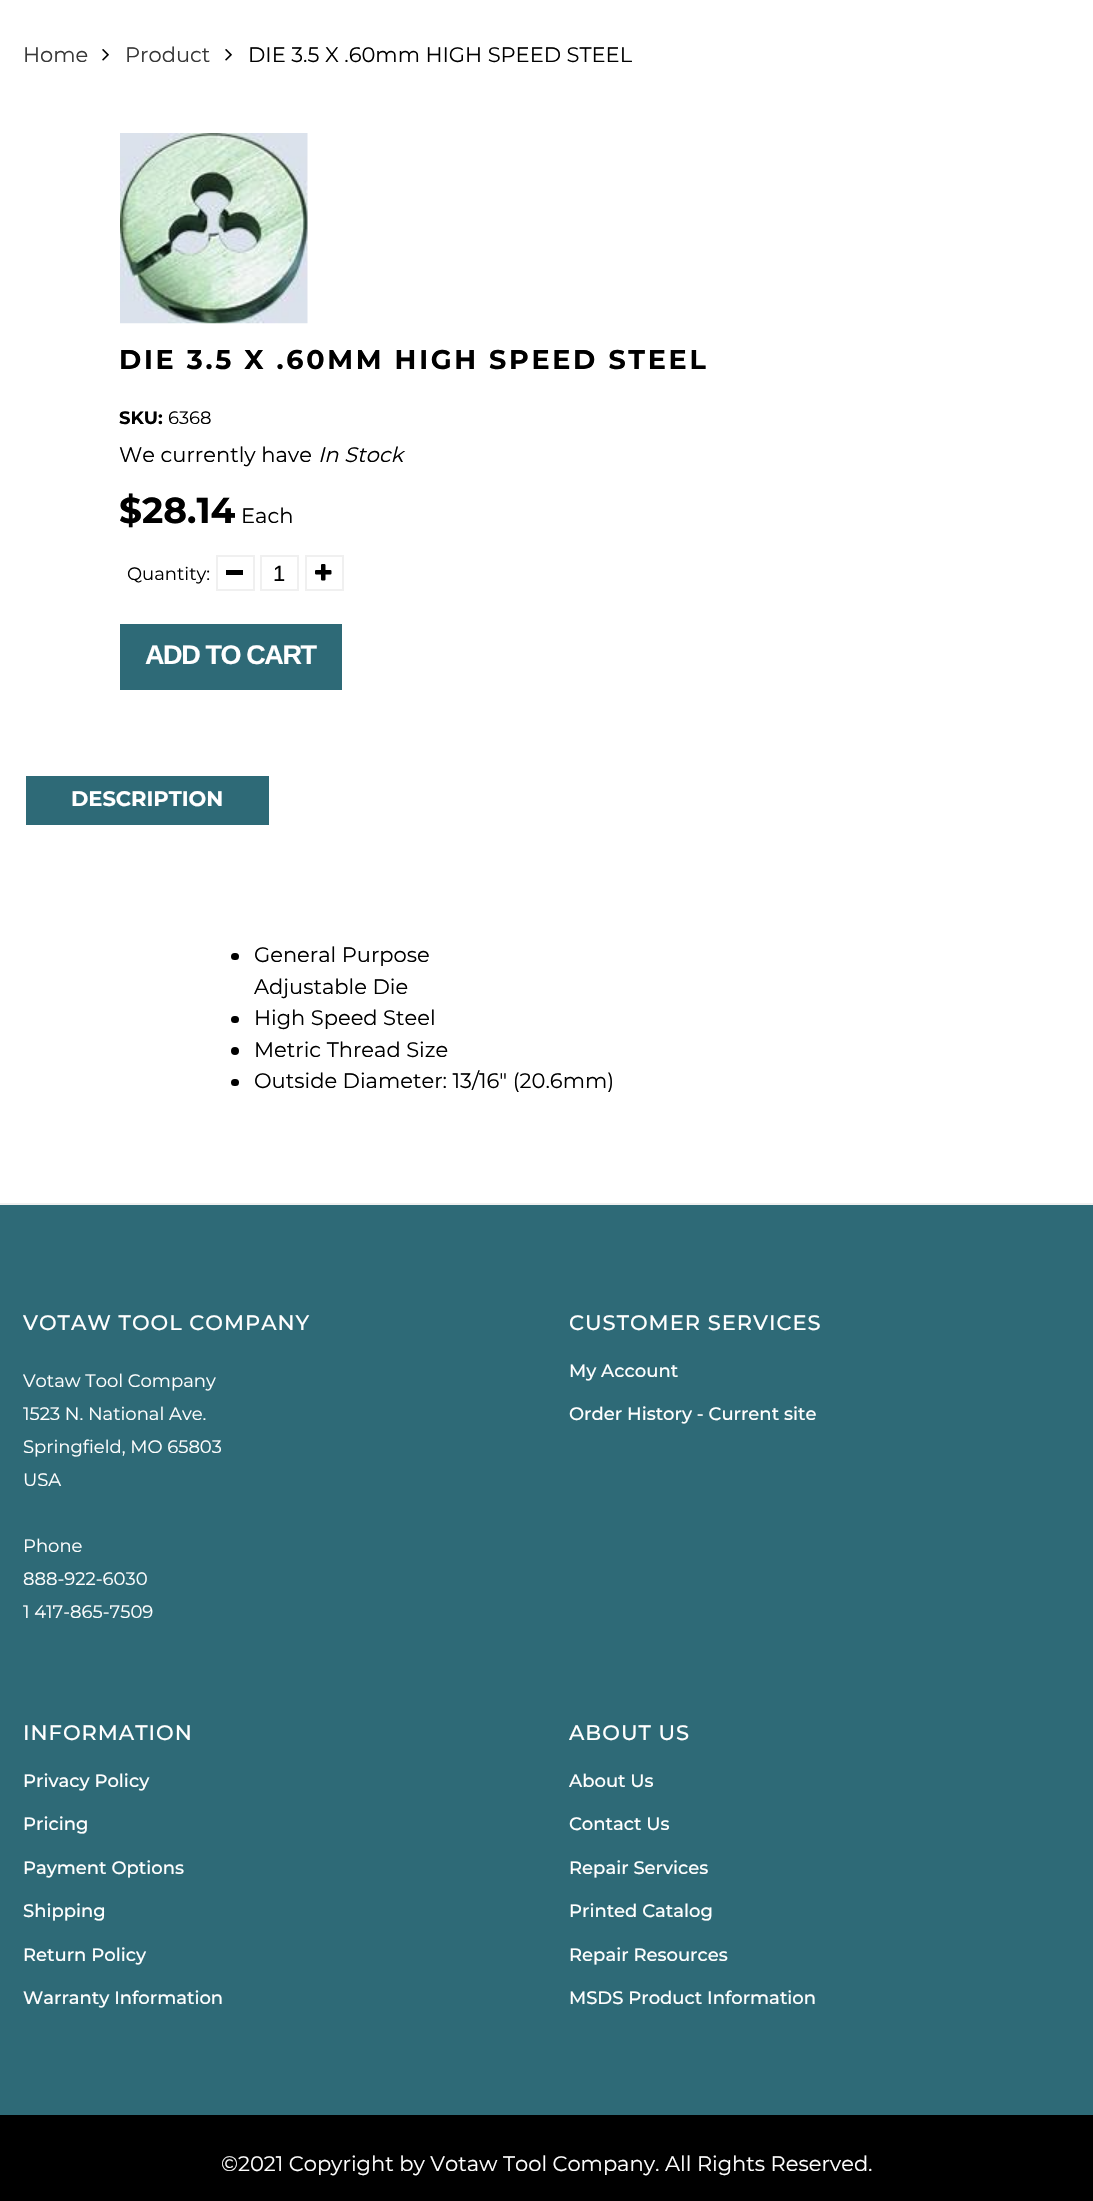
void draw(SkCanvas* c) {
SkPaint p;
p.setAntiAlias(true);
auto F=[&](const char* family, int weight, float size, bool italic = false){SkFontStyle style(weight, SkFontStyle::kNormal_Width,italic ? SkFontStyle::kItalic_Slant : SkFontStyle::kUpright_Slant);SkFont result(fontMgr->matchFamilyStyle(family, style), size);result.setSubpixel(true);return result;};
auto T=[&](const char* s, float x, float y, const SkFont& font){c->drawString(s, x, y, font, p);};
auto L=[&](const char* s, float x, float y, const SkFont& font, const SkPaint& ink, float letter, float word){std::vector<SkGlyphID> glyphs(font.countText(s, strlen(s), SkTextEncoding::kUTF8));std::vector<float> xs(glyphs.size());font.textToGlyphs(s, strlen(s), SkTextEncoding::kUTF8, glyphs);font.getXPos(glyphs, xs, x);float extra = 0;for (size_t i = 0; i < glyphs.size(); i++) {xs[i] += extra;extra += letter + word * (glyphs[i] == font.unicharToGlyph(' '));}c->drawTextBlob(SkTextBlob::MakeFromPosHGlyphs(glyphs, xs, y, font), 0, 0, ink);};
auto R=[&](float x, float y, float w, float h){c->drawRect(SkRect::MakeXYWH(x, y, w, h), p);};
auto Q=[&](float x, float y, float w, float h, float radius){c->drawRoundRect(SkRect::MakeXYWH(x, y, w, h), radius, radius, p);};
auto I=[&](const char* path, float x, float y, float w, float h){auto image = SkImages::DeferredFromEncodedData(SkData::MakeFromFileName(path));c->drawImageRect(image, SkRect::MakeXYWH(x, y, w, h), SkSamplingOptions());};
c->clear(0xffffffff);
auto f1 = F("Montserrat",400,21);
p.setColor(0xff383838);
T("Home",23,62,f1);
I("1.png",102,49,7,12);
T("Product",125,62,f1);
I("1.png",225,49,7,12);
p.setColor(0xff000000);
T("DIE 3.5 X .60mm HIGH SPEED STEEL",248,62,f1);
I("2.png",120,133,188,191);
auto f2 = F("Montserrat",700,27);
L("DIE 3.5 X .60MM HIGH SPEED STEEL",119,369,f2,p,2.7,0);
auto f3 = F("Montserrat",700,18);
T("SKU:",119,424,f3);
auto f4 = F("Montserrat",400,18);
T("6368",168,424,f4);
T("We currently have",119,462,f1);
auto f5 = F("Montserrat",400,21,true);
T("In Stock",318,462,f5);
auto f6 = F("Montserrat",700,36);
T("$28.14",119,523,f6);
T("Each",241,523,f1);
T("Quantity:",127,580,f4);
p.setStroke(true);
p.setStrokeWidth(2);
p.setColor(0xfff0f0f0);
c->drawRect(SkRect::MakeXYWH(217,556,37,34),p);
p.setStroke(false);
p.setColor(0xff000000);
R(226,570,17,5);
p.setStroke(true);
p.setColor(0xfff0f0f0);
c->drawRect(SkRect::MakeXYWH(261,556,37,34),p);
auto f7 = F("Liberation Sans",400,22);
p.setStroke(false);
p.setColor(0xff000000);
T("1",273,581,f7);
p.setStroke(true);
p.setColor(0xfff0f0f0);
c->drawRect(SkRect::MakeXYWH(306,556,37,34),p);
I("3.png",315,564,17,17);
p.setStroke(false);
p.setColor(0xff2e6a77);
R(120,624,222,66);
auto f8 = F("Liberation Sans",700,27);
p.setColor(0xffffffff);
L("ADD TO CART",145,664,f8,p,-1.4,0);
p.setColor(0xff2e6a77);
R(26,776,243,49);
auto f9 = F("Montserrat",700,21);
p.setColor(0xffffffff);
T("DESCRIPTION",71,806,f9);
p.setColor(0xff000000);
Q(231,953,8,7,3.5);
T("General Purpose",254,962,f1);
T("Adjustable Die",254,994,f1);
Q(231,1016,8,7,3.5);
T("High Speed Steel",254,1025,f1);
c->drawCircle(235,1051,4,p);
T("Metric Thread Size",254,1057,f1);
Q(231,1079,8,7,3.5);
T("Outside Diameter: 13/16\" (20.6mm)",254,1088,f1);
p.setColor(0xff2e6a77);
R(0,1205,1093,910);
p.setColor(0xfff0f0f0);
R(0,1203,1093,2);
auto f10 = F("Montserrat",500,21);
p.setColor(0xffffffff);
L("VOTAW TOOL COMPANY",23,1330,f10,p,1,0);
T("Votaw Tool Company",23,1387,f4);
T("1523 N. National Ave.",23,1420,f4);
T("Springfield, MO 65803",23,1453,f4);
T("USA",23,1486,f4);
T("Phone",23,1552,f4);
T("888-922-6030",23,1585,f4);
T("1 417-865-7509",23,1618,f4);
L("CUSTOMER SERVICES",569,1330,f10,p,1,0);
auto f11 = F("Montserrat",500,18);
T("My Account",569,1377,f11);
T("Order History - Current site",569,1420,f11);
L("INFORMATION",23,1740,f10,p,1,0);
T("Privacy Policy",23,1787,f11);
T("Pricing",23,1830,f11);
T("Payment Options",23,1874,f11);
T("Shipping",23,1917,f11);
T("Return Policy",23,1961,f11);
T("Warranty Information",23,2004,f11);
L("ABOUT US",569,1740,f10,p,1,0);
T("About Us",569,1787,f11);
T("Contact Us",569,1830,f11);
T("Repair Services",569,1874,f11);
T("Printed Catalog",569,1917,f11);
T("Repair Resources",569,1961,f11);
T("MSDS Product Information",569,2004,f11);
p.setColor(0xff000000);
R(0,2115,1093,86);
p.setColor(0xffffffff);
T("©2021 Copyright by Votaw Tool Company. All Rights Reserved.",221,2171,f1);
}
